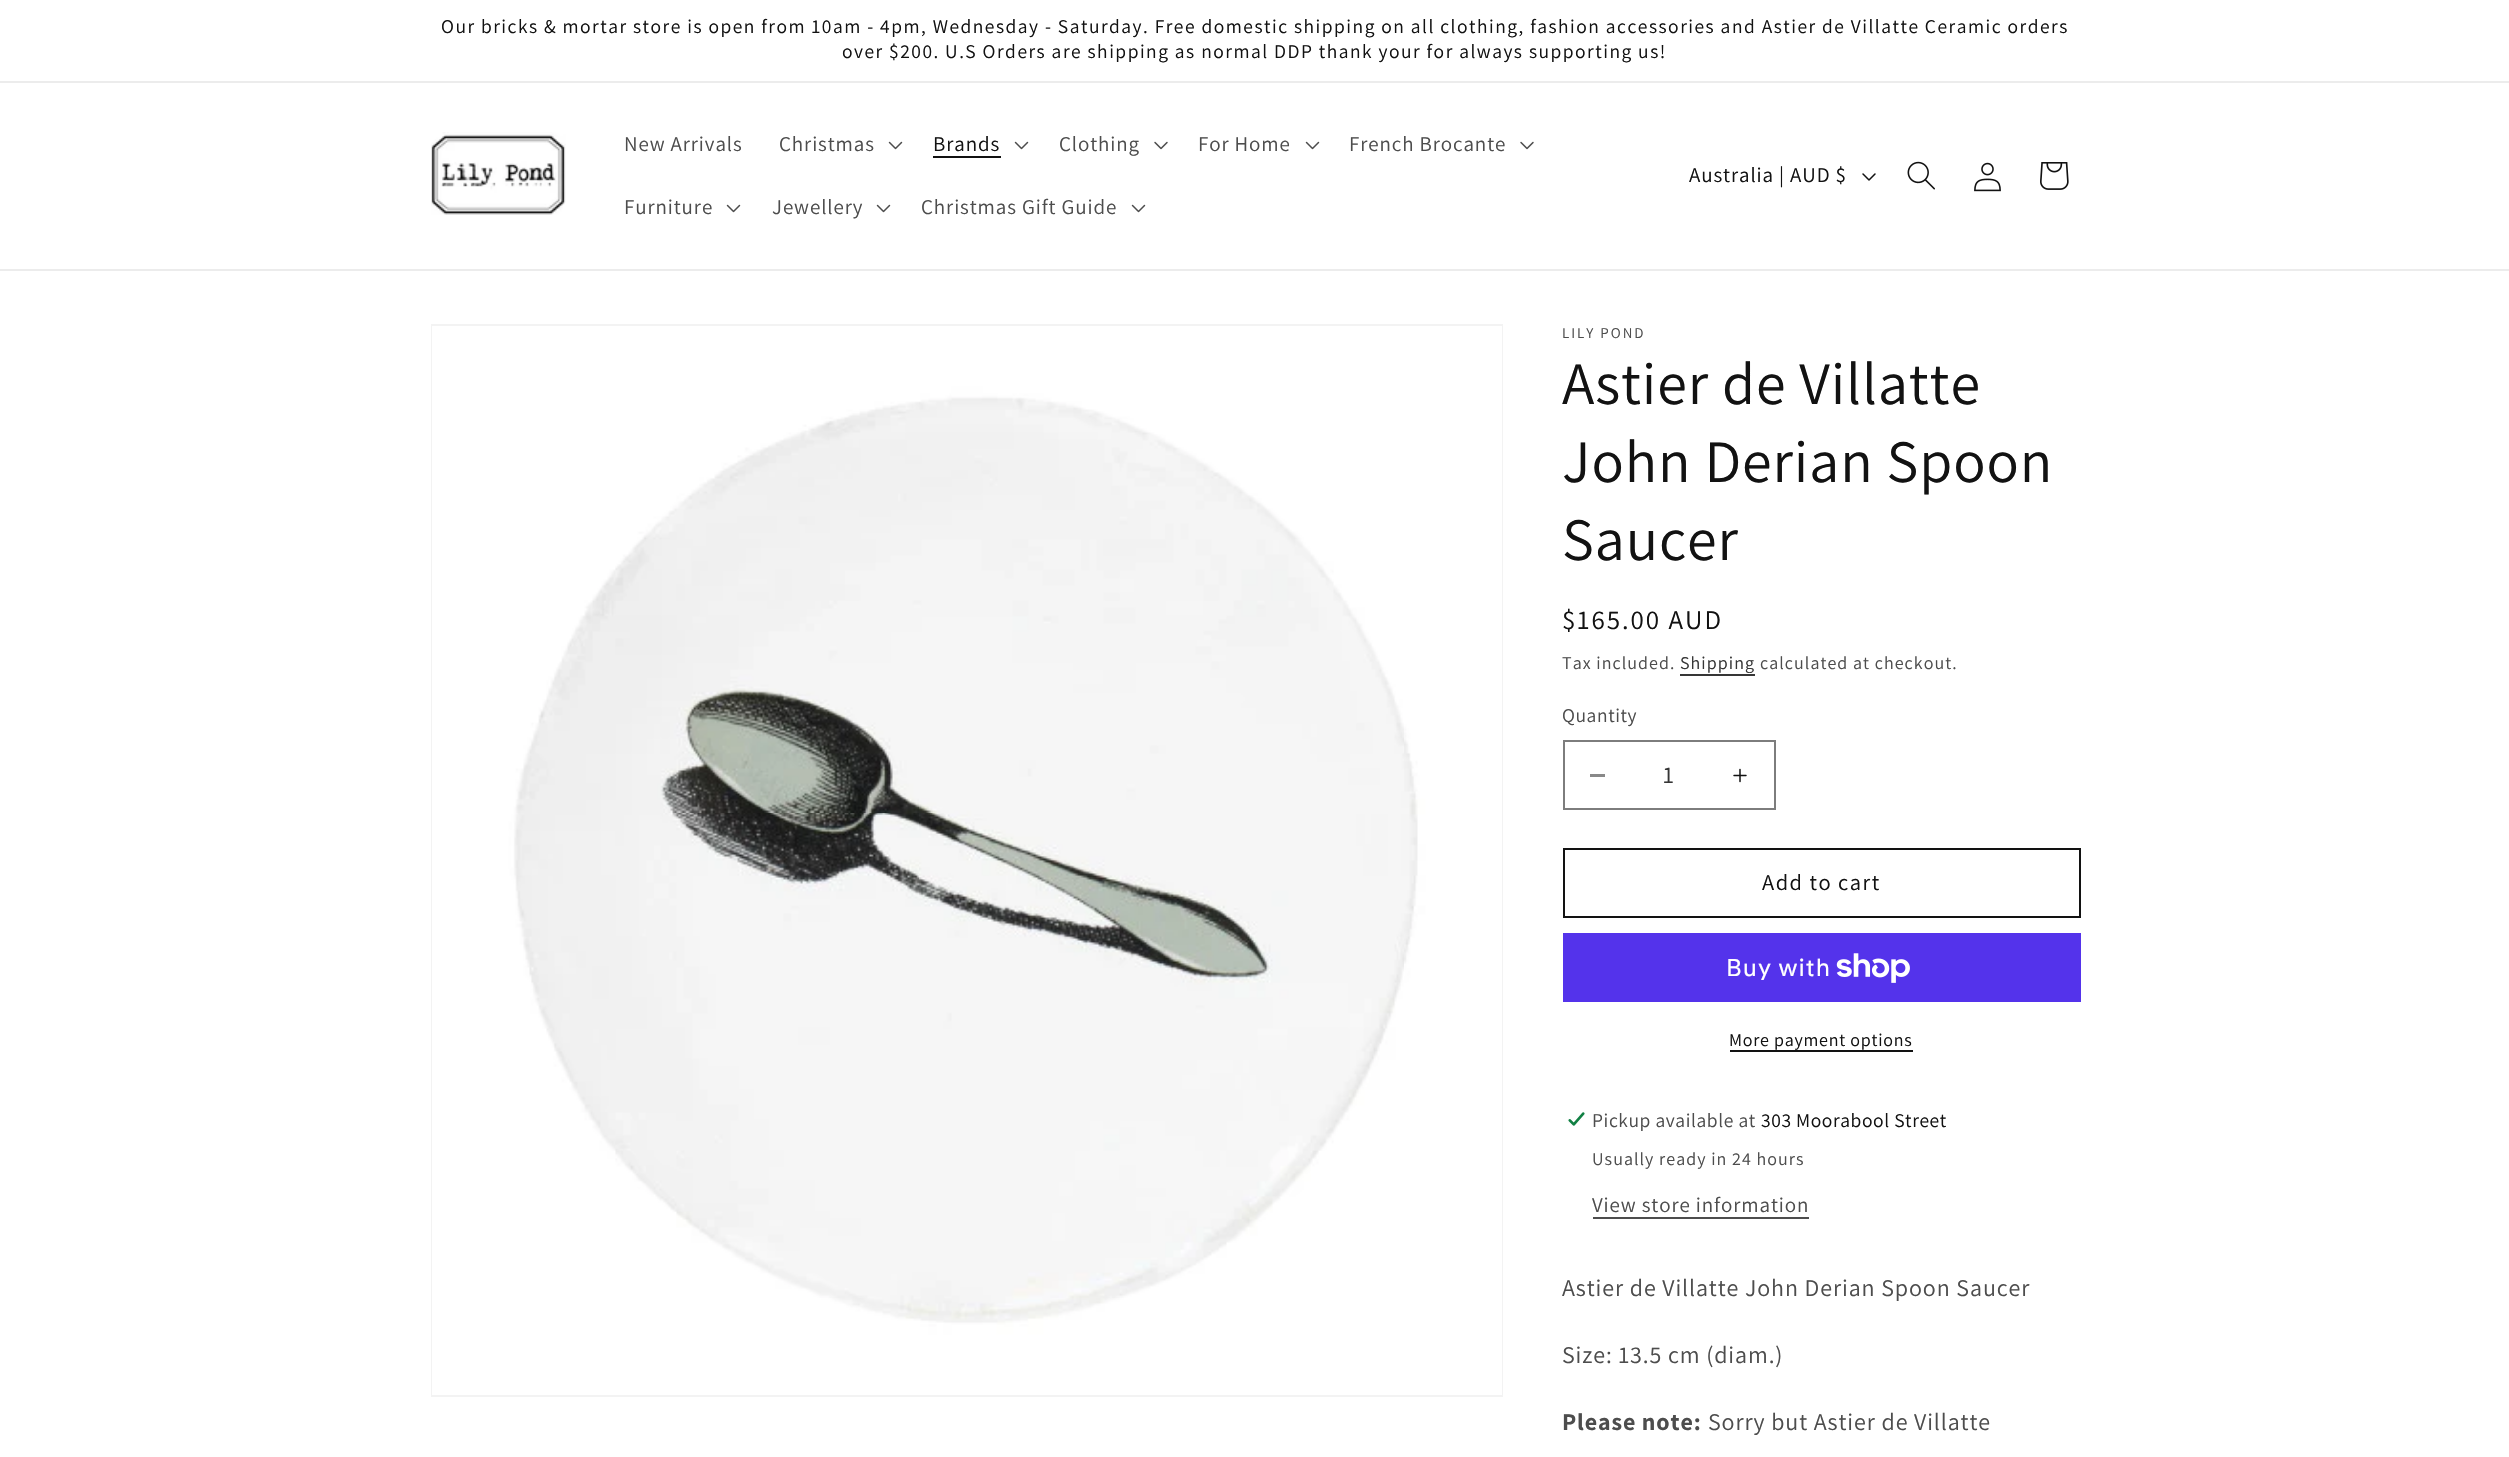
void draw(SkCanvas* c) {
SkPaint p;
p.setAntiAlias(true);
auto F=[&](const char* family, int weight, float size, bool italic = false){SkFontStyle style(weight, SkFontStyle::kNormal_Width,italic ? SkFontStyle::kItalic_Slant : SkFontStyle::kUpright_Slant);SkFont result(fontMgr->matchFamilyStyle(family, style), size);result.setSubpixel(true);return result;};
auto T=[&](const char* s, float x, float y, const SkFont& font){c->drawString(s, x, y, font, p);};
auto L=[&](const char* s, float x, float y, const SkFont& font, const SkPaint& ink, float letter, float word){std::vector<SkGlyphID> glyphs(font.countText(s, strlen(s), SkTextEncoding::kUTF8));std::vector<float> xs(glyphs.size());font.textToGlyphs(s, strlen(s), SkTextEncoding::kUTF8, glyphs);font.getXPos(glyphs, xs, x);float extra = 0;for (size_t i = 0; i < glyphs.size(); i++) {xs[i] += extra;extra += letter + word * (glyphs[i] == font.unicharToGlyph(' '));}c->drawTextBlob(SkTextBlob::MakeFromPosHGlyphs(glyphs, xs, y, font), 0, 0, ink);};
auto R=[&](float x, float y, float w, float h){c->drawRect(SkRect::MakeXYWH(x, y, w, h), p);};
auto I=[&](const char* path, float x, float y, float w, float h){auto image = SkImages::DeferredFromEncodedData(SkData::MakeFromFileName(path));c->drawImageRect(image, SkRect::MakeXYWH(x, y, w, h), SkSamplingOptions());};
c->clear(0xffffffff);
p.setColor(0xffececec);
R(0,81,2509,2);
auto f1 = F("Assistant",400,19.5);
p.setColor(0xff121212);
L("Our bricks & mortar store is open from 10am - 4pm, Wednesday - Saturday. Free domestic shipping on all clothing, fashion accessories and Astier de Villatte Ceramic orders",441,33,f1,p,1.5,0);
L("over $200. U.S Orders are shipping as normal DDP thank your for always supporting us!",842,58,f1,p,1.5,0);
p.setColor(0xffececec);
R(0,269,2509,2);
I("1.png",431,132,135,83);
auto f2 = F("Assistant",400,21);
p.setColor(0xff4d4d4d);
L("New Arrivals",624,151,f2,p,.9,0);
L("Christmas",779,151,f2,p,.9,0);
I("2.png",888,141,15,9);
p.setColor(0xff121212);
L("Brands",933,151,f2,p,.9,0);
R(933,156,68,2);
I("2.png",1014,141,15,9);
p.setColor(0xff4d4d4d);
L("Clothing",1059,151,f2,p,.9,0);
I("3.png",1154,141,14,9);
L("For Home",1198,151,f2,p,.9,0);
I("2.png",1305,141,15,9);
L("French Brocante",1349,151,f2,p,.9,0);
I("3.png",1520,141,14,9);
L("Furniture",624,214,f2,p,.9,0);
I("2.png",726,204,15,9);
L("Jewellery",772,214,f2,p,.9,0);
I("2.png",876,204,15,9);
L("Christmas Gift Guide",921,214,f2,p,.9,0);
I("2.png",1131,204,15,9);
p.setColor(0xff121212);
L("Australia | AUD $",1689,182,f2,p,.9,0);
I("4.png",1862,173,14,8);
I("5.png",1907,161,28,29);
I("6.png",1974,162,27,30);
I("7.png",2040,162,29,28);
p.setStroke(true);
p.setStrokeWidth(2);
p.setColor(0xfff3f3f3);
c->drawRect(SkRect::MakeXYWH(432,325,1070,1071),p);
I("8.png",432,326,1070,1069);
auto f3 = F("Assistant",400,15);
p.setStroke(false);
p.setColor(0xff4d4d4d);
L("LILY POND",1562,338,f3,p,2,0);
auto f4 = F("Assistant",400,60);
p.setColor(0xff121212);
L("Astier de Villatte",1562,404,f4,p,.9,0);
L("John Derian Spoon",1562,482,f4,p,.9,0);
L("Saucer",1562,560,f4,p,.9,0);
auto f5 = F("Assistant",400,27);
L("$165.00 AUD",1562,629,f5,p,2,0);
auto f6 = F("Assistant",400,18);
p.setColor(0xff4d4d4d);
L("Tax included.",1562,669,f6,p,1.05,0);
p.setColor(0xff363636);
L("Shipping",1680,669,f6,p,1.05,0);
R(1680,674,75,2);
p.setColor(0xff4d4d4d);
L("calculated at checkout.",1760,669,f6,p,1.05,0);
L("Quantity",1562,722,f1,p,.6,0);
p.setColor(0xff898989);
R(1590,774,15,3);
I("9.png",1733,768,14,15);
p.setStroke(true);
p.setColor(0xff7d7d7d);
c->drawRect(SkRect::MakeXYWH(1564,741,211,68),p);
auto f7 = F("Assistant",400,24);
p.setStroke(false);
p.setColor(0xff363636);
T("1",1663,783,f7);
p.setStroke(true);
p.setColor(0xff121212);
c->drawRect(SkRect::MakeXYWH(1564,849,516,68),p);
auto f8 = F("Assistant",400,22.5);
p.setStroke(false);
L("Add to cart",1762,890,f8,p,1.5,0);
p.setColor(0xff5433eb);
R(1563,933,518,69);
auto f9 = F("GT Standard",400,24);
p.setColor(0xffffffff);
L("Buy with",1726,976,f9,p,.9,0);
I("10.png",1836,953,74,30);
p.setColor(0xff121212);
L("More payment options",1729,1046,f6,p,.75,0);
R(1730,1050,183,2);
I("11.png",1567,1112,18,14);
p.setColor(0xff4d4d4d);
L("Pickup available at",1592,1127,f1,p,.6,0);
p.setColor(0xff121212);
L("303 Moorabool Street",1761,1127,f1,p,.6,0);
p.setColor(0xff4d4d4d);
L("Usually ready in 24 hours",1592,1165,f6,p,1.05,0);
L("View store information",1592,1212,f2,p,.9,0);
R(1593,1217,216,2);
L("Astier de Villatte John Derian Spoon Saucer",1562,1296,f7,p,.9,0);
L("Size: 13.5 cm (diam.)",1562,1363,f7,p,.9,0);
auto f10 = F("Assistant",700,24);
L("Please note:",1562,1430,f10,p,.9,0);
L("Sorry but Astier de Villatte",1708,1430,f7,p,.9,0);
}
